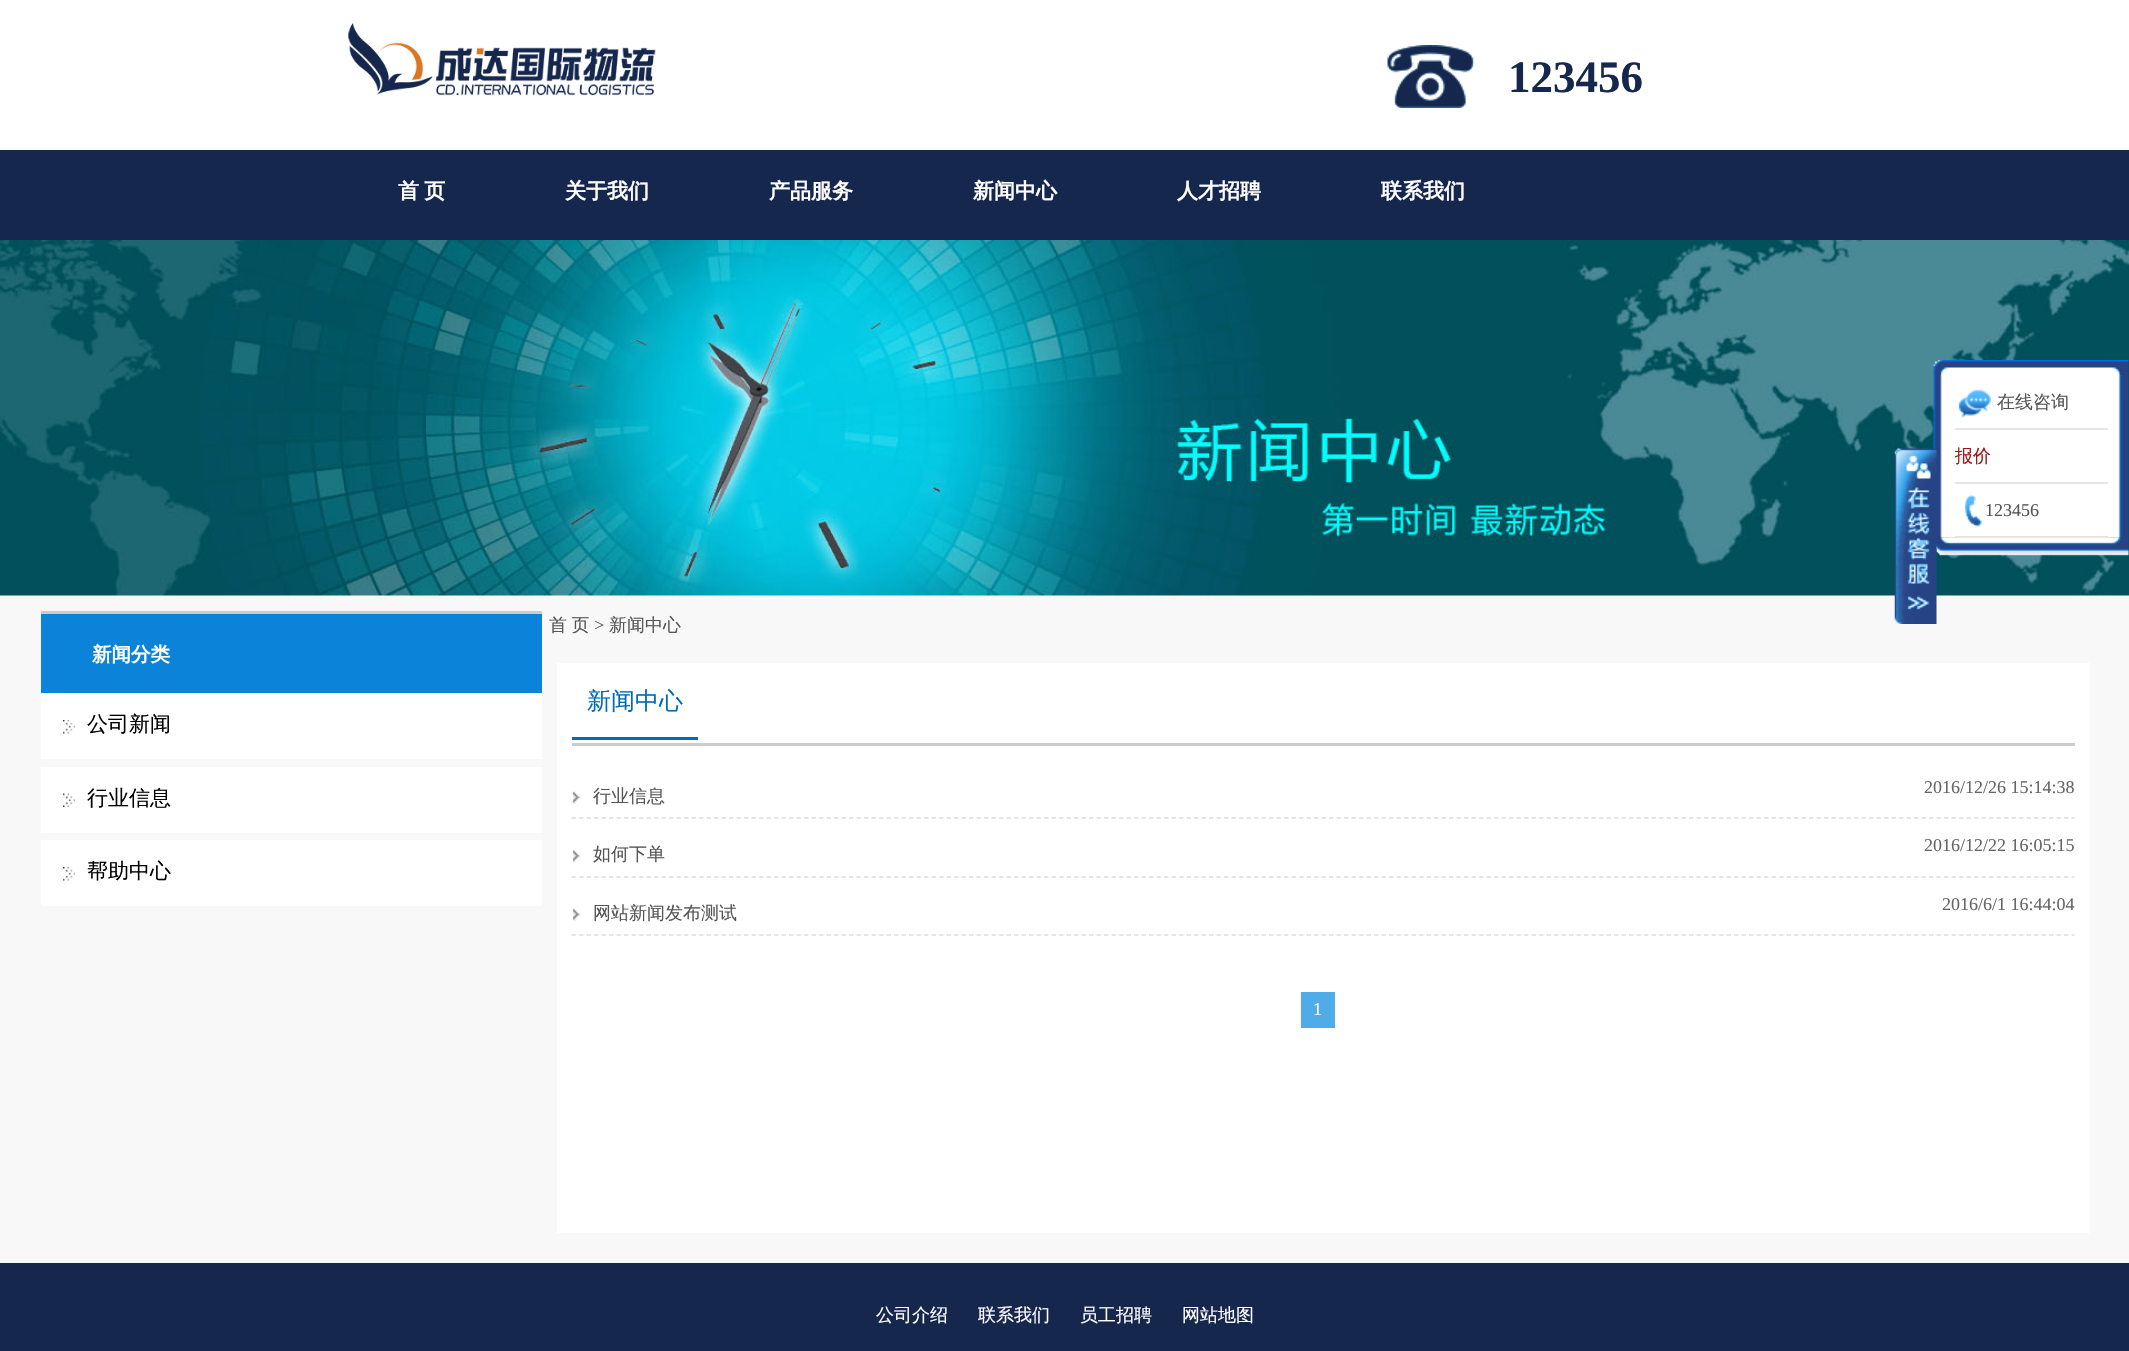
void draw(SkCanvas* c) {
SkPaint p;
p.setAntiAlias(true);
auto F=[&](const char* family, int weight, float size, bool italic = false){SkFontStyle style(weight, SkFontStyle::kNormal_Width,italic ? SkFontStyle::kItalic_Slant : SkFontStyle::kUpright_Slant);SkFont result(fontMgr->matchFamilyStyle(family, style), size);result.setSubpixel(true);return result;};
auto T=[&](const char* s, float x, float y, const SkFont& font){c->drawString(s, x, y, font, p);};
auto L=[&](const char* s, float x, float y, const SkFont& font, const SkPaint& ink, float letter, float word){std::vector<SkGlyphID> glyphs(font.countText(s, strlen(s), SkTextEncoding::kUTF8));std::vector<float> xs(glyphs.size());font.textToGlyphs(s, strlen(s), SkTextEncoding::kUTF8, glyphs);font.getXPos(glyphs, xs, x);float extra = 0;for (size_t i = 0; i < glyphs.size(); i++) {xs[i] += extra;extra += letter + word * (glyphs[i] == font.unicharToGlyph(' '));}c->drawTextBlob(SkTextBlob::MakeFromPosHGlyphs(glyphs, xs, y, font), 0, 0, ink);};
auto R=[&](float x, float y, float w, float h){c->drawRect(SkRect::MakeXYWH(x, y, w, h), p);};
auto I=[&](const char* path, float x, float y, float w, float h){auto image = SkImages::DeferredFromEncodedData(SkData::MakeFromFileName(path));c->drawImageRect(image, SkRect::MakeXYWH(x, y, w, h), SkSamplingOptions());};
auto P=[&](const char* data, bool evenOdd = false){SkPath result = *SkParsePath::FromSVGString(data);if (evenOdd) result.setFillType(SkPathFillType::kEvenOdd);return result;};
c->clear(0xffffffff);
I("1.png",348,23,308,73);
I("2.png",1387,45,87,63);
auto f1 = F("Liberation Serif",700,45);
p.setColor(0xff16274d);
T("123456",1508,92,f1);
R(0,150,2129,90);
auto f2 = F("WenQuanYi Zen Hei",700,21);
p.setColor(0xffffffff);
L("首 页",398,198,f2,p,0,-1);
T("关于我们",565,198,f2);
T("产品服务",769,198,f2);
T("新闻中心",973,198,f2);
T("人才招聘",1177,198,f2);
T("联系我们",1381,198,f2);
I("3.png",0,240,2129,356);
I("5.png",1936,536,193,20);
I("7.png",1933,375,196,162);
p.setColor(0xfff8f8f8);
R(0,596,2129,667);
I("4.png",1894,448,43,176);
I("6.png",1933,360,196,15);
p.setColor(0xffe6e5e4);
R(1955,428,153,2);
I("8.png",1958,389,33,29);
auto f3 = F("WenQuanYi Zen Hei",500,18);
p.setColor(0xff555555);
T("在线咨询",1997,408,f3);
p.setColor(0xffe6e5e4);
R(1955,482,153,2);
p.setColor(0xffa31515);
T("报价",1955,462,f3);
p.setColor(0xffe6e5e4);
R(1955,536,153,2);
I("9.png",1964,494,19,33);
auto f4 = F("Liberation Serif",400,18);
p.setColor(0xff555555);
T("123456",1985,516,f4);
L("首 页",549,631,f3,p,0,-1);
T(">",594,631,f4);
T("新闻中心",609,631,f3);
p.setColor(0xff0a83d8);
R(41,614,501,79);
p.setColor(0xffcccccc);
R(41,611,501,3);
auto f5 = F("WenQuanYi Zen Hei",700,19.5);
p.setColor(0xffffffff);
T("新闻分类",92,661,f5);
R(41,693,501,66);
I("10.png",63,720,12,14);
auto f6 = F("WenQuanYi Zen Hei",500,21);
p.setColor(0xff000000);
T("公司新闻",87,731,f6);
p.setColor(0xffffffff);
R(41,767,501,66);
I("11.png",63,793,12,14);
p.setColor(0xff000000);
T("行业信息",87,805,f6);
p.setColor(0xffffffff);
R(41,840,501,66);
I("10.png",63,867,12,14);
p.setColor(0xff000000);
T("帮助中心",87,878,f6);
p.setColor(0xffffffff);
R(557,663,1533,570);
p.setColor(0xffcccccc);
R(572,743,1503,3);
auto f7 = F("WenQuanYi Zen Hei",500,24);
p.setColor(0xff006cb7);
T("新闻中心",587,709,f7);
R(572,737,126,3);
p.setStroke(true);
p.setStrokeWidth(1.5);
p.setColor(0xffdddddd);
p.setPathEffect(SkDashPathEffect::Make({{4.5f,3}}, 0));
c->drawPath(P("M571.5 818h1503"),p);
p.setPathEffect(nullptr);
I("12.png",572,791,9,13);
p.setStroke(false);
p.setColor(0xff555555);
T("行业信息",593,802,f3);
p.setColor(0xff666666);
T("2016/12/26 15:14:38",1924,793,f4);
p.setStroke(true);
p.setColor(0xffdddddd);
p.setPathEffect(SkDashPathEffect::Make({{4.5f,3}}, 0));
c->drawPath(P("M571.5 877h1503"),p);
p.setPathEffect(nullptr);
I("13.png",572,850,9,13);
p.setStroke(false);
p.setColor(0xff555555);
T("如何下单",593,860,f3);
p.setColor(0xff666666);
T("2016/12/22 16:05:15",1924,851,f4);
p.setStroke(true);
p.setColor(0xffdddddd);
p.setPathEffect(SkDashPathEffect::Make({{4.5f,3}}, 0));
c->drawPath(P("M571.5 935h1503"),p);
p.setPathEffect(nullptr);
I("12.png",572,908,9,13);
p.setStroke(false);
p.setColor(0xff555555);
T("网站新闻发布测试",593,919,f3);
p.setColor(0xff666666);
T("2016/6/1 16:44:04",1942,910,f4);
p.setColor(0xff4face9);
R(1301,992,34,36);
p.setColor(0xffffffff);
L("1",1313,1015,f4,p,2,0);
p.setColor(0xff16274d);
R(0,1263,2129,88);
p.setColor(0xffffffff);
T("公司介绍",876,1321,f3);
T("联系我们",978,1321,f3);
T("员工招聘",1080,1321,f3);
T("网站地图",1182,1321,f3);
}
